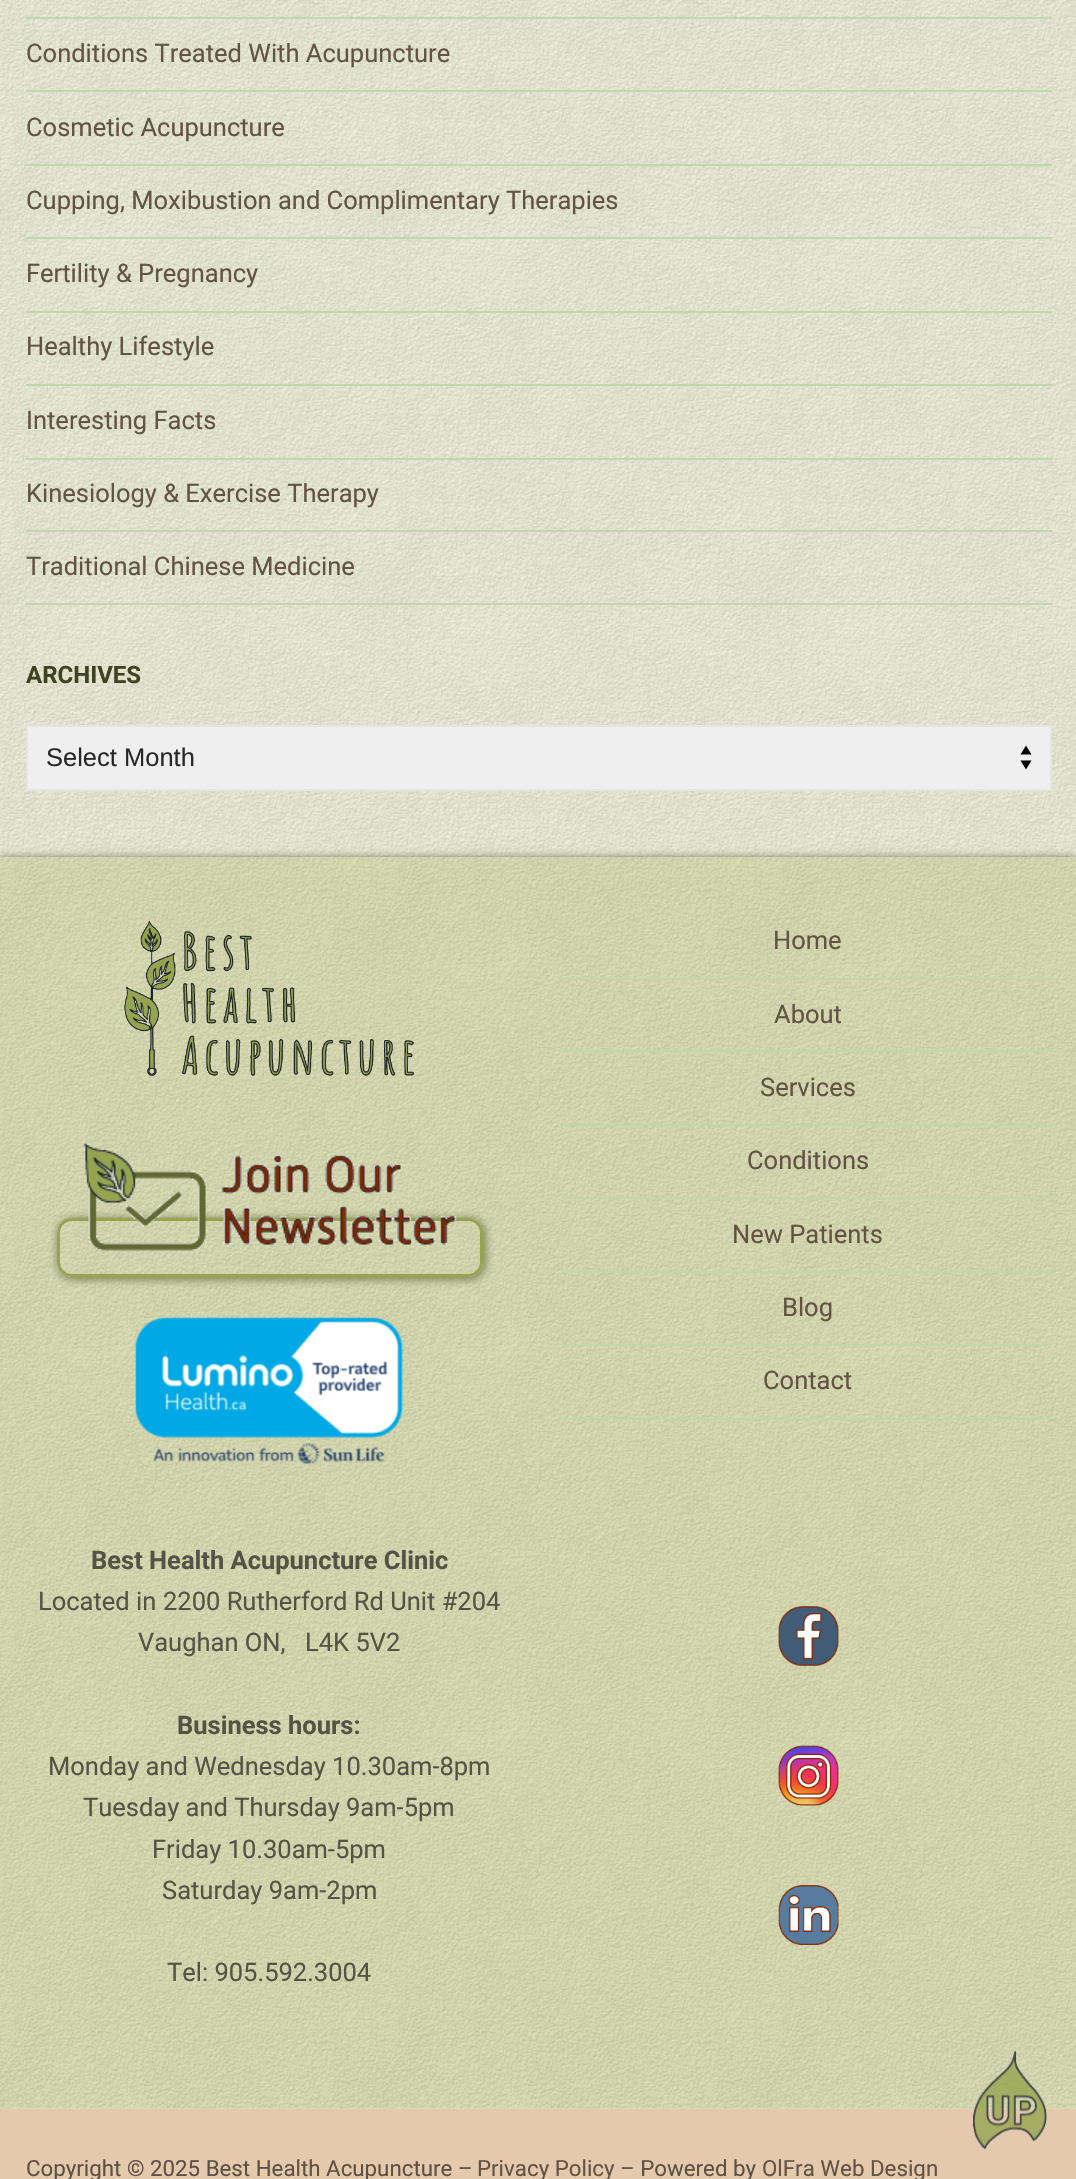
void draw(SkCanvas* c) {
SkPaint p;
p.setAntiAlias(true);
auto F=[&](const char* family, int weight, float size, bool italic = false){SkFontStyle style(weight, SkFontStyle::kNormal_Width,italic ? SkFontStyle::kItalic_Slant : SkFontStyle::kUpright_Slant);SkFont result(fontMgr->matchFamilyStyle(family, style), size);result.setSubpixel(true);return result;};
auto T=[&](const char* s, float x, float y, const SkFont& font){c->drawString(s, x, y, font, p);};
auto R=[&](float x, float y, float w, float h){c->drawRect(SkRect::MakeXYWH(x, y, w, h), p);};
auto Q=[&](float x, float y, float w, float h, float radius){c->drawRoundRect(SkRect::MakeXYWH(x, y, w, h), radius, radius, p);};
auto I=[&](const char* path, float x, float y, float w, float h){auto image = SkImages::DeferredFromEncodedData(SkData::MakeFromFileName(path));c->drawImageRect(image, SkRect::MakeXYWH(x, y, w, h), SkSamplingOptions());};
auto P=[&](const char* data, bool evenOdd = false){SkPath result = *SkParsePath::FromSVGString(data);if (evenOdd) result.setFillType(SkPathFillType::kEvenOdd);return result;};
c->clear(0xffedefda);
I("1.png",0,0,1076,856);
p.setColor(0xffc4d6ab);
R(26,17,1026,2);
R(26,90,1026,2);
auto f1 = F("Roboto",400,25.5);
p.setColor(0xff625344);
T("Conditions Treated With Acupuncture",26,62,f1);
p.setColor(0xffc4d6ab);
R(26,164,1026,2);
p.setColor(0xff625344);
T("Cosmetic Acupuncture",26,136,f1);
p.setColor(0xffc4d6ab);
R(26,237,1026,2);
p.setColor(0xff625344);
T("Cupping, Moxibustion and Complimentary Therapies",26,209,f1);
p.setColor(0xffc4d6ab);
R(26,311,1026,2);
p.setColor(0xff625344);
T("Fertility & Pregnancy",26,282,f1);
p.setColor(0xffc4d6ab);
R(26,384,1026,2);
p.setColor(0xff625344);
T("Healthy Lifestyle",26,355,f1);
p.setColor(0xffc4d6ab);
R(26,458,1026,2);
p.setColor(0xff625344);
T("Interesting Facts",26,429,f1);
p.setColor(0xffc4d6ab);
R(26,530,1026,2);
p.setColor(0xff625344);
T("Kinesiology & Exercise Therapy",26,502,f1);
p.setColor(0xffc4d6ab);
R(26,603,1026,2);
p.setColor(0xff625344);
T("Traditional Chinese Medicine",26,575,f1);
auto f2 = F("Roboto",700,24);
p.setColor(0xff3e4322);
T("ARCHIVES",26,683,f2);
p.setColor(0xffefefef);
Q(26,725,1026,66,1.5);
p.setColor(0xff000000);
c->drawPath(P("M1026 745.5l-5.5 9h11zm0 24l5.5-9h-11z"),p);
p.setStroke(true);
p.setStrokeWidth(2);
p.setColor(0xffe5e5e5);
c->drawRoundRect(SkRect::MakeXYWH(27,726,1024,64),.5,.5,p);
auto f3 = F("Liberation Sans",400,25.5);
p.setStroke(false);
p.setColor(0xff282828);
T("Select Month",46,766,f3);
p.setColor(0xff80875d);
p.setMaskFilter(SkMaskFilter::MakeBlur(kNormal_SkBlurStyle, 4));
c->drawRect(SkRect::MakeXYWH(0,857,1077,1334),p);
p.setMaskFilter(nullptr);
p.setColor(0xffdde0b6);
R(0,857,1076,1252);
I("2.png",0,856,1076,1253);
I("3.png",124,921,291,155);
p.setColor(0xff80875d);
p.setMaskFilter(SkMaskFilter::MakeBlur(kNormal_SkBlurStyle, 4));
c->drawRoundRect(SkRect::MakeXYWH(57,1218,429,62),17,17,p);
p.setMaskFilter(nullptr);
p.setColor(0xffdde0b6);
Q(57,1218,426,59,15);
I("5.png",57,1217,426,57);
p.setStroke(true);
p.setStrokeWidth(3);
p.setColor(0xff96a451);
c->drawRoundRect(SkRect::MakeXYWH(58.5,1219.5,423,56),13.5,13.5,p);
I("4.png",83,1143,374,108);
I("6.png",135,1317,269,148);
p.setStroke(false);
p.setColor(0xffc4d6ab);
R(564,978,488,2);
p.setColor(0xff625344);
T("Home",773,949,f1);
p.setColor(0xffc4d6ab);
R(564,1050,488,2);
p.setColor(0xff625344);
T("About",774,1023,f1);
p.setColor(0xffc4d6ab);
R(564,1124,488,2);
p.setColor(0xff625344);
T("Services",760,1096,f1);
p.setColor(0xffc4d6ab);
R(564,1197,488,2);
p.setColor(0xff625344);
T("Conditions",747,1169,f1);
p.setColor(0xffc4d6ab);
R(564,1271,488,2);
p.setColor(0xff625344);
T("New Patients",732,1243,f1);
p.setColor(0xffc4d6ab);
R(564,1344,488,2);
p.setColor(0xff625344);
T("Blog",782,1316,f1);
p.setColor(0xffc4d6ab);
R(564,1418,488,2);
p.setColor(0xff625344);
T("Contact",763,1389,f1);
auto f4 = F("Roboto",700,25.5);
p.setColor(0xff535445);
T("Best Health Acupuncture Clinic",91,1569,f4);
T("Located in",38,1610,f1);
T("2200 Rutherford Rd Unit #204",163,1610,f1);
T("Vaughan ON,",138,1651,f1);
T("L4K 5V2",305,1651,f1);
T("Business hours:",177,1734,f4);
T("Monday and Wednesday 10.30am-8pm",48,1775,f1);
T("Tuesday and Thursday 9am-5pm",83,1816,f1);
T("Friday 10.30am-5pm",152,1858,f1);
T("Saturday 9am-2pm",162,1899,f1);
T("Tel: 905.592.3004",167,1981,f1);
I("7.png",778,1606,61,60);
I("8.png",778,1745,61,61);
I("9.png",778,1885,61,60);
p.setColor(0xffe5c9ad);
R(0,2109,1076,70);
auto f5 = F("Roboto",400,22.3);
p.setColor(0xff5c5045);
T("Copyright © 2025 Best Health Acupuncture –",26,2176,f5);
p.setColor(0xff625344);
T("Privacy Policy",477,2176,f5);
p.setColor(0xff5c5045);
T("– Powered by",620,2176,f5);
p.setColor(0xff625344);
T("OlFra Web Design",762,2176,f5);
I("10.png",972,2050,75,100);
}
